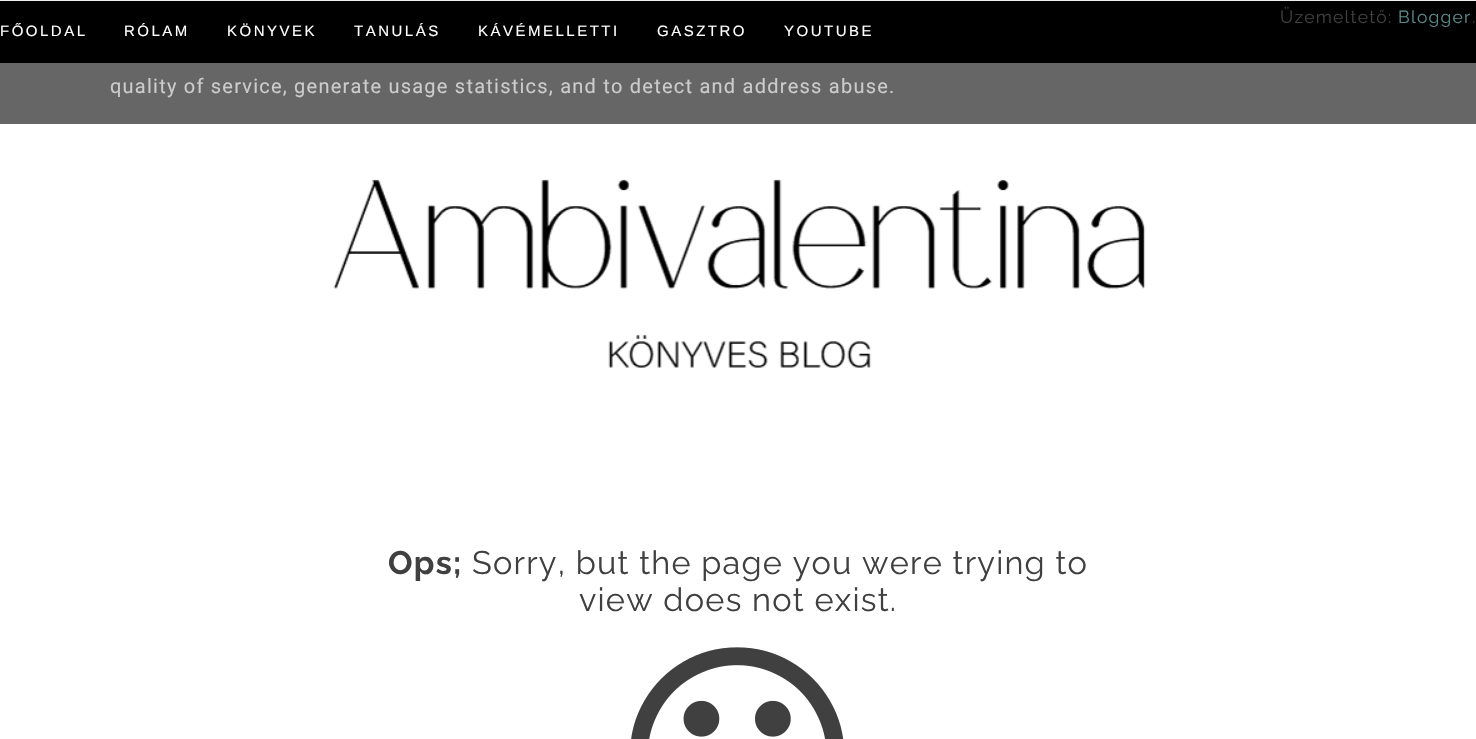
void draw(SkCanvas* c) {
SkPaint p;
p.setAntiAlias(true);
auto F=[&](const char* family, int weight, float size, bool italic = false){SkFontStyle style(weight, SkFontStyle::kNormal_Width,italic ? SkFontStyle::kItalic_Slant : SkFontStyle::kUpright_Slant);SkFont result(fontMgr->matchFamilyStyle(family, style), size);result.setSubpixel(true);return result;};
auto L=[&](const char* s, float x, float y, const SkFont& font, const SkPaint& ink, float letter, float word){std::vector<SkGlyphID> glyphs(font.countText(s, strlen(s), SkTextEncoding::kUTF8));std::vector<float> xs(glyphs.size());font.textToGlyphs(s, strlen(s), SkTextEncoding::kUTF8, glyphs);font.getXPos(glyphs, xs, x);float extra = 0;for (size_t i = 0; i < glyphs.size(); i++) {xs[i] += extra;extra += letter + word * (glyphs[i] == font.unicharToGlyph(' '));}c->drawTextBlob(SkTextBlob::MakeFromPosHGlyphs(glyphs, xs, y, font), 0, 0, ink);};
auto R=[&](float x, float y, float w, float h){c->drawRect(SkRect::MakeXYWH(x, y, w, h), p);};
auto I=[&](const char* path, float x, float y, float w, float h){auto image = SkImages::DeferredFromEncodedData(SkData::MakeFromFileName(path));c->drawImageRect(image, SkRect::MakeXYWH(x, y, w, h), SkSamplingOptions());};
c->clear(0xffffffff);
p.setColor(0xff000000);
R(0,1,1476,62);
auto f1 = F("Raleway",400,17.5);
p.setColor(0xff404040);
L("Üzemeltető:",1280,23,f1,p,1.23,0);
p.setColor(0xff588b8b);
L("Blogger",1398,23,f1,p,1.23,0);
p.setColor(0xff404040);
L(".",1472,23,f1,p,1.23,0);
p.setColor(0xffeeeeee);
R(0,0,1476,1);
auto f2 = F("Liberation Sans",400,15);
p.setColor(0xffffffff);
L("FŐOLDAL",0,36,f2,p,2.5,0);
L("RÓLAM",124,36,f2,p,2.5,0);
L("KÖNYVEK",227,36,f2,p,2.5,0);
L("TANULÁS",354,36,f2,p,2.5,0);
L("KÁVÉMELLETTI",478,36,f2,p,2.5,0);
L("GASZTRO",657,36,f2,p,2.5,0);
L("YOUTUBE",784,36,f2,p,2.5,0);
p.setColor(0xff666666);
R(0,63,1476,61);
auto f3 = F("Roboto",400,20);
p.setColor(0xffcccccc);
L("quality of service, generate usage statistics, and to detect and address abuse.",110,93,f3,p,1.23,0);
I("1.png",333,179,813,189);
auto f4 = F("Raleway",700,32.5);
p.setColor(0xff404040);
L("Ops;",388,574,f4,p,1.23,0);
auto f5 = F("Raleway",400,32.5);
L("Sorry, but the page you were trying to",472,574,f5,p,1.23,0);
L("view does not exist.",579,611,f5,p,1.23,0);
I("2.png",631,647,213,92);
}
